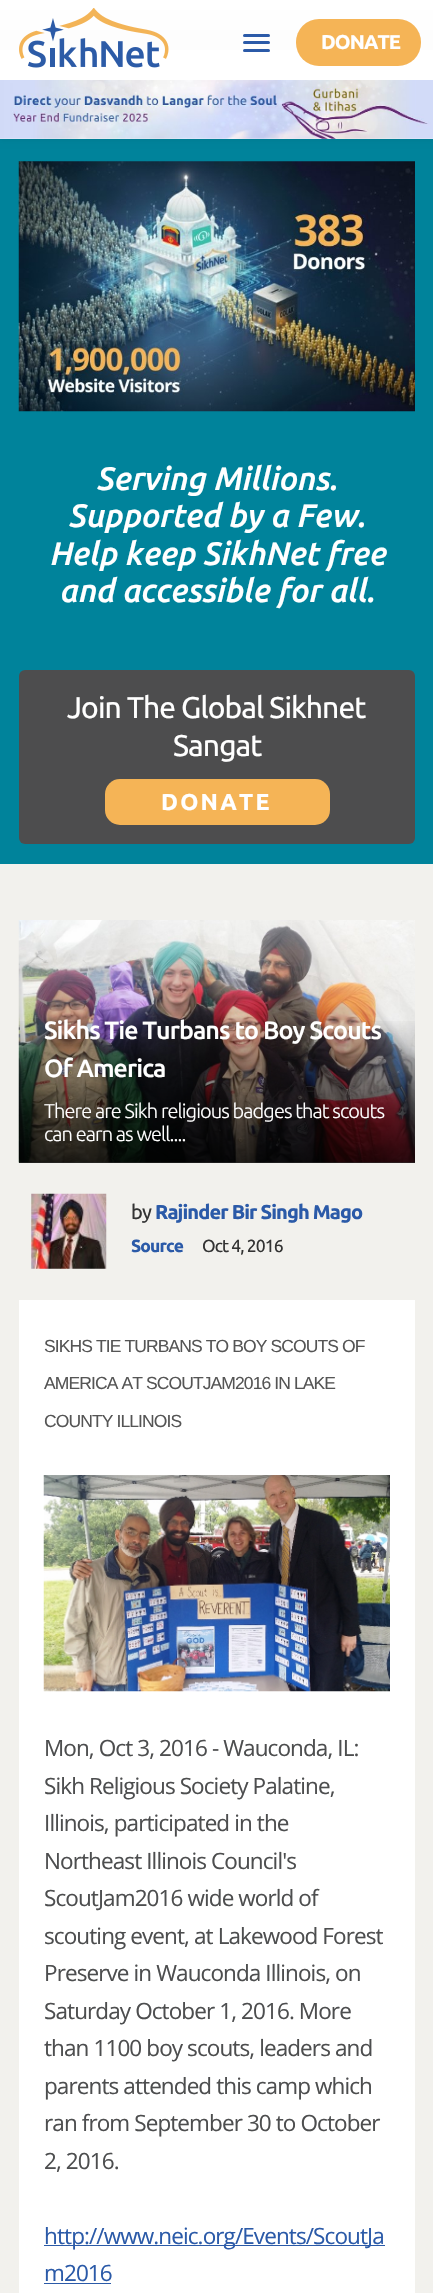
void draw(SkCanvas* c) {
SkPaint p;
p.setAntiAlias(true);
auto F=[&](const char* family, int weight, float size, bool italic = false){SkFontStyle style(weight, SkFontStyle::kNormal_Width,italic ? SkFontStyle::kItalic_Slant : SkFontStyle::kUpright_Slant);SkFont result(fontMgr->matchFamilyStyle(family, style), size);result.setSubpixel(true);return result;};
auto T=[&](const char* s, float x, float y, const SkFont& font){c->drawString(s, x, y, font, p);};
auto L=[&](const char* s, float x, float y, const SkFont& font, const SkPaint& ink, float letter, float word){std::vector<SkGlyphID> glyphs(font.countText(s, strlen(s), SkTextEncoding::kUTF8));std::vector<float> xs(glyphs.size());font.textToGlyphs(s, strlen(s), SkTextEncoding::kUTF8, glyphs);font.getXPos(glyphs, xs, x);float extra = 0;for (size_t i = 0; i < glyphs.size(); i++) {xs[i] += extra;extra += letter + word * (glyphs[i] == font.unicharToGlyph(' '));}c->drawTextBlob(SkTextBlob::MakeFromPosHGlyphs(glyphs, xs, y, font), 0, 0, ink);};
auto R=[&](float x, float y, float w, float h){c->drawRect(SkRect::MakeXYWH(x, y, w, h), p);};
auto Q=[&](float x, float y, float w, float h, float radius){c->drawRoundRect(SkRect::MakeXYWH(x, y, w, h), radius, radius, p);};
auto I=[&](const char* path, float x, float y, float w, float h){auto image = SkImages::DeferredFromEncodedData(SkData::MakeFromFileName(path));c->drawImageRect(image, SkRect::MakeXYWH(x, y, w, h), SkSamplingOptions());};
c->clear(0xfff2f1ed);
p.setColor(0xff00839b);
R(0,139,433,725);
p.setColor(0x12000000);
p.setMaskFilter(SkMaskFilter::MakeBlur(kNormal_SkBlurStyle, 3));
c->drawRect(SkRect::MakeXYWH(0,1,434,139),p);
p.setMaskFilter(nullptr);
{
const SkColor colors[] = {0xffffffff,0xfff8f8f8};
const float stops[] = {0,1};
const SkPoint ends[] = {{217,0}, {217,139}};
p.setShader(SkGradientShader::MakeLinear(ends, colors, stops, 2, SkTileMode::kClamp));
p.setAlpha(255);
}
R(0,0,433,139);
p.setShader(nullptr);
p.setColor(0xffffffff);
R(0,50,433,30);
I("1.png",19,8,150,60);
p.setColor(0xff2b5aa8);
Q(243,34,27,3,1.5);
Q(243,41,27,3,1.5);
Q(243,49,27,3,1.5);
p.setColor(0xfff5b456);
Q(296,19,125,47,23);
auto f1 = F("Ubuntu",700,20);
p.setColor(0xffffffff);
L("DONATE",321,49,f1,p,-.9,0);
I("2.png",0,80,433,59);
I("3.png",18,161,397,251);
auto f2 = F("Ubuntu",500,32.5,true);
T("Serving Millions.",96,490,f2);
T("Supported by a Few.",68,527,f2);
T("Help keep SikhNet free",49,565,f2);
T("and accessible for all.",59,602,f2);
p.setColor(0xff4d4d4e);
Q(19,670,396,174,6);
auto f3 = F("Ubuntu",400,30);
p.setColor(0xffffffff);
L("Join The Global Sikhnet",67,718,f3,p,-.9,0);
L("Sangat",173,756,f3,p,-.9,0);
p.setColor(0xfff5b456);
Q(105,779,225,46,15);
auto f4 = F("Ubuntu",700,23);
p.setColor(0xffffffff);
L("DONATE",161,810,f4,p,2.25,0);
I("4.png",18,920,397,243);
{
const SkColor colors[] = {0x00000000,0xcc000000,0x94000000};
const float stops[] = {.4,1,1};
const SkPoint ends[] = {{217,920}, {217,1163}};
p.setShader(SkGradientShader::MakeLinear(ends, colors, stops, 3, SkTileMode::kClamp));
p.setAlpha(255);
}
R(19,1021,396,142);
auto f5 = F("Ubuntu",500,25);
p.setShader(nullptr);
p.setColor(0xffffffff);
L("Sikhs Tie Turbans to Boy Scouts",44,1039,f5,p,-.9,0);
L("Of America",44,1077,f5,p,-.9,0);
auto f6 = F("Ubuntu",300,20);
L("There are Sikh religious badges that scouts",44,1118,f6,p,-.9,0);
L("can earn as well....",44,1141,f6,p,-.9,0);
I("5.png",31,1193,76,76);
auto f7 = F("Ubuntu",400,20);
p.setColor(0xff333333);
L("by",131,1219,f7,p,-.9,0);
p.setColor(0xff2b5aa8);
L("Rajinder Bir Singh Mago",155,1219,f1,p,-.9,0);
auto f8 = F("Ubuntu",700,17.5);
L("Source",131,1252,f8,p,-.9,0);
auto f9 = F("Ubuntu",400,17.5);
p.setColor(0xff333333);
L("Oct 4, 2016",202,1252,f9,p,-.9,0);
p.setColor(0xffffffff);
R(19,1300,396,993);
auto f10 = F("Liberation Sans",400,17.5);
p.setColor(0xff555555);
L("SIKHS TIE TURBANS TO BOY SCOUTS OF",44,1352,f10,p,-.9,0);
L("AMERICA AT SCOUTJAM2016 IN LAKE",44,1389,f10,p,-.9,0);
L("COUNTY ILLINOIS",44,1427,f10,p,-.9,0);
I("6.png",43,1475,347,217);
auto f11 = F("Open Sans",400,22.5);
p.setColor(0xff4d4e4f);
L("Mon, Oct 3, 2016 - Wauconda, IL:",44,1756,f11,p,-.9,0);
L("Sikh Religious Society Palatine,",44,1794,f11,p,-.9,0);
L("Illinois, participated in the",44,1831,f11,p,-.9,0);
L("Northeast Illinois Council's",44,1869,f11,p,-.9,0);
L("ScoutJam2016 wide world of",44,1906,f11,p,-.9,0);
L("scouting event, at Lakewood Forest",44,1944,f11,p,-.9,0);
L("Preserve in Wauconda Illinois, on",44,1981,f11,p,-.9,0);
L("Saturday October 1, 2016. More",44,2019,f11,p,-.9,0);
L("than 1100 boy scouts, leaders and",44,2056,f11,p,-.9,0);
L("parents attended this camp which",44,2094,f11,p,-.9,0);
L("ran from September 30 to October",44,2131,f11,p,-.9,0);
L("2, 2016.",44,2169,f11,p,-.9,0);
p.setColor(0xff2b5aa8);
R(44,2245,341,1);
L("http://www.neic.org/Events/ScoutJa",44,2244,f11,p,-.9,0);
L("m2016",44,2281,f11,p,-.9,0);
R(44,2283,67,1);
}
